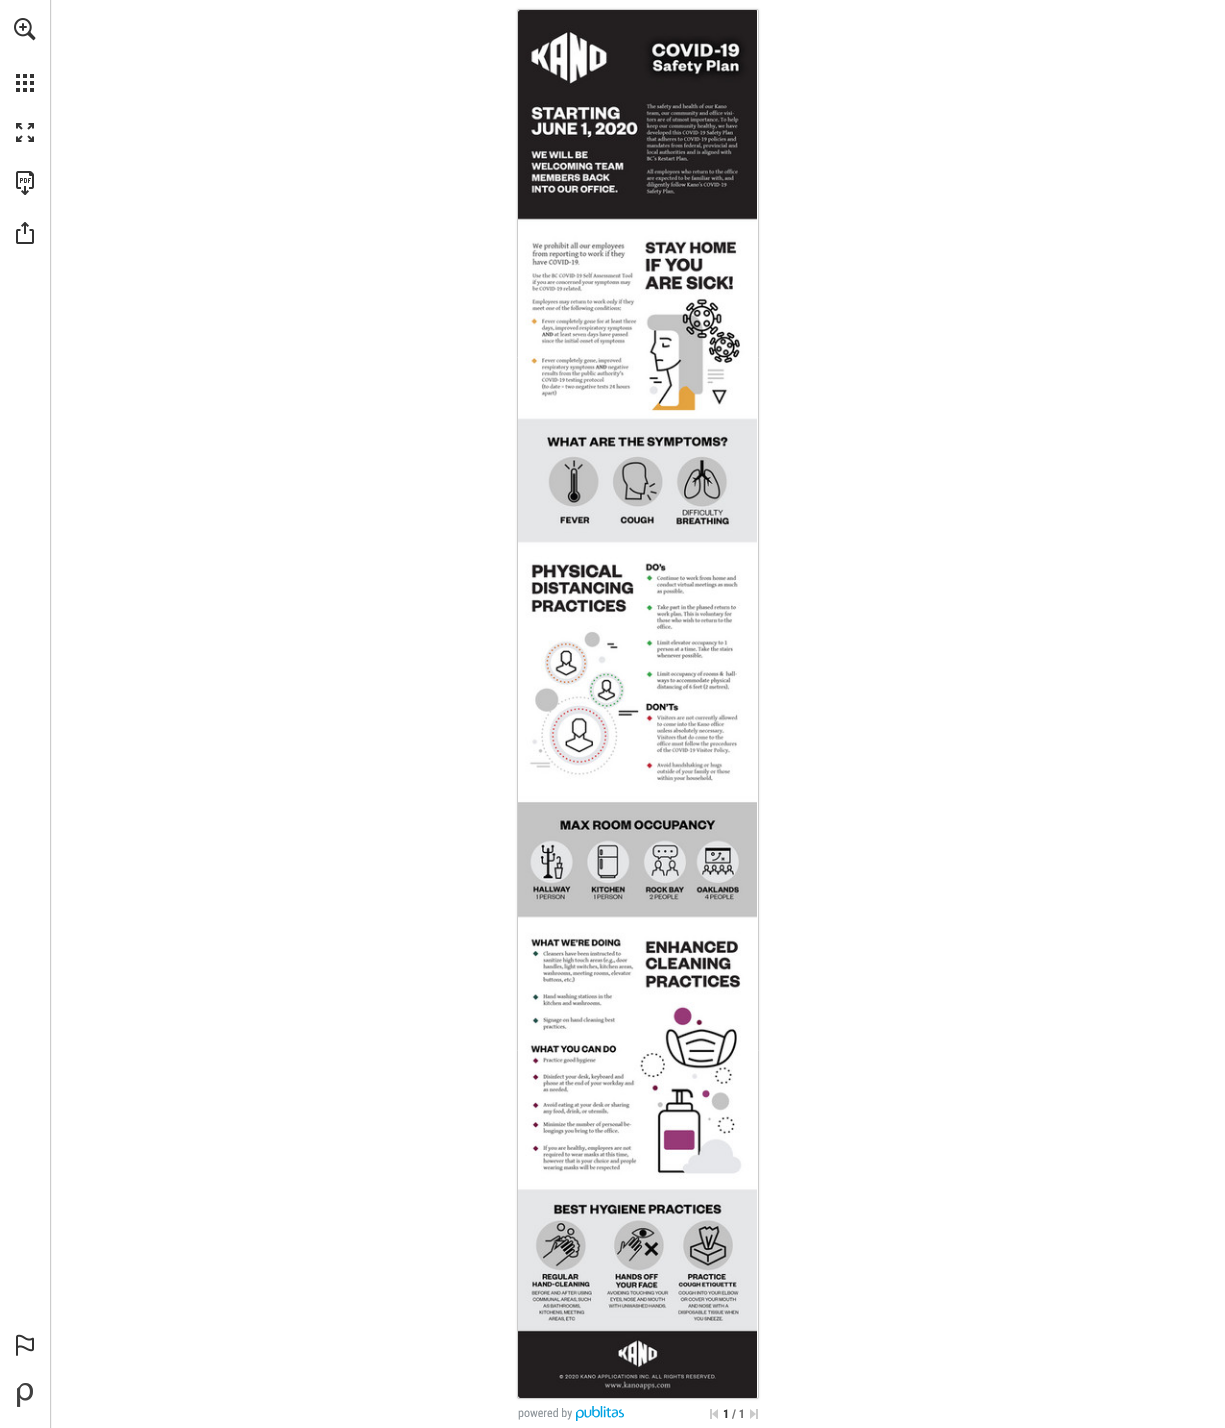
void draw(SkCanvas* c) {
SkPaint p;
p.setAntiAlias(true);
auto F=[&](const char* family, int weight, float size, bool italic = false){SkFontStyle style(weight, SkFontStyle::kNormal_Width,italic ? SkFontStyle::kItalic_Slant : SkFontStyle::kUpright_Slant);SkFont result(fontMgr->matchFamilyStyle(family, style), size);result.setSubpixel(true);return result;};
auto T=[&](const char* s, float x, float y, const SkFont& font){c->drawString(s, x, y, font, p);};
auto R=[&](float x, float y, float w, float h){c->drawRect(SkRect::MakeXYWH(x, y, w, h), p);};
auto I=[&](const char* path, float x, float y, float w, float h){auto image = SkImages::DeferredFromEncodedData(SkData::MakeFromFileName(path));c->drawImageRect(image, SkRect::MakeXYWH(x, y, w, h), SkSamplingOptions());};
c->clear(0xffffffff);
p.setColor(0x33000000);
p.setMaskFilter(SkMaskFilter::MakeBlur(kNormal_SkBlurStyle, .5));
c->drawRect(SkRect::MakeXYWH(1,0,50,1428),p);
p.setMaskFilter(nullptr);
p.setColor(0xffffffff);
R(0,0,50,1428);
I("1.png",14,18,22,23);
I("2.png",16,74,18,18);
I("3.png",16,123,18,19);
I("4.png",16,171,18,24);
I("5.png",16,222,18,22);
I("6.png",16,1334,18,22);
I("7.png",17,1383,16,24);
p.setColor(0x0d121212);
p.setMaskFilter(SkMaskFilter::MakeBlur(kNormal_SkBlurStyle, 1));
c->drawRoundRect(SkRect::MakeXYWH(516,8,244,1392),3,3,p);
p.setMaskFilter(nullptr);
p.setColor(0xffffffff);
c->drawRoundRect(SkRect::MakeXYWH(517.5,9.5,241,1389),1.5,1.5,p);
p.setStroke(true);
p.setStrokeWidth(1);
p.setColor(0xffcccccc);
c->drawRoundRect(SkRect::MakeXYWH(517.5,9.5,241,1389),1.5,1.5,p);
I("8.png",518,10,239,1388);
I("9.png",576,1406,48,15);
auto f1 = F("Roboto Condensed",400,12);
p.setStroke(false);
p.setColor(0xff8f969b);
T("powered by",518,1417,f1);
I("10.png",710,1409,8,10);
auto f2 = F("Roboto Condensed",700,12);
p.setColor(0xff333333);
T("1",723,1418,f2);
p.setColor(0xff707070);
T("/ 1",732,1418,f2);
I("11.png",750,1409,8,10);
}
